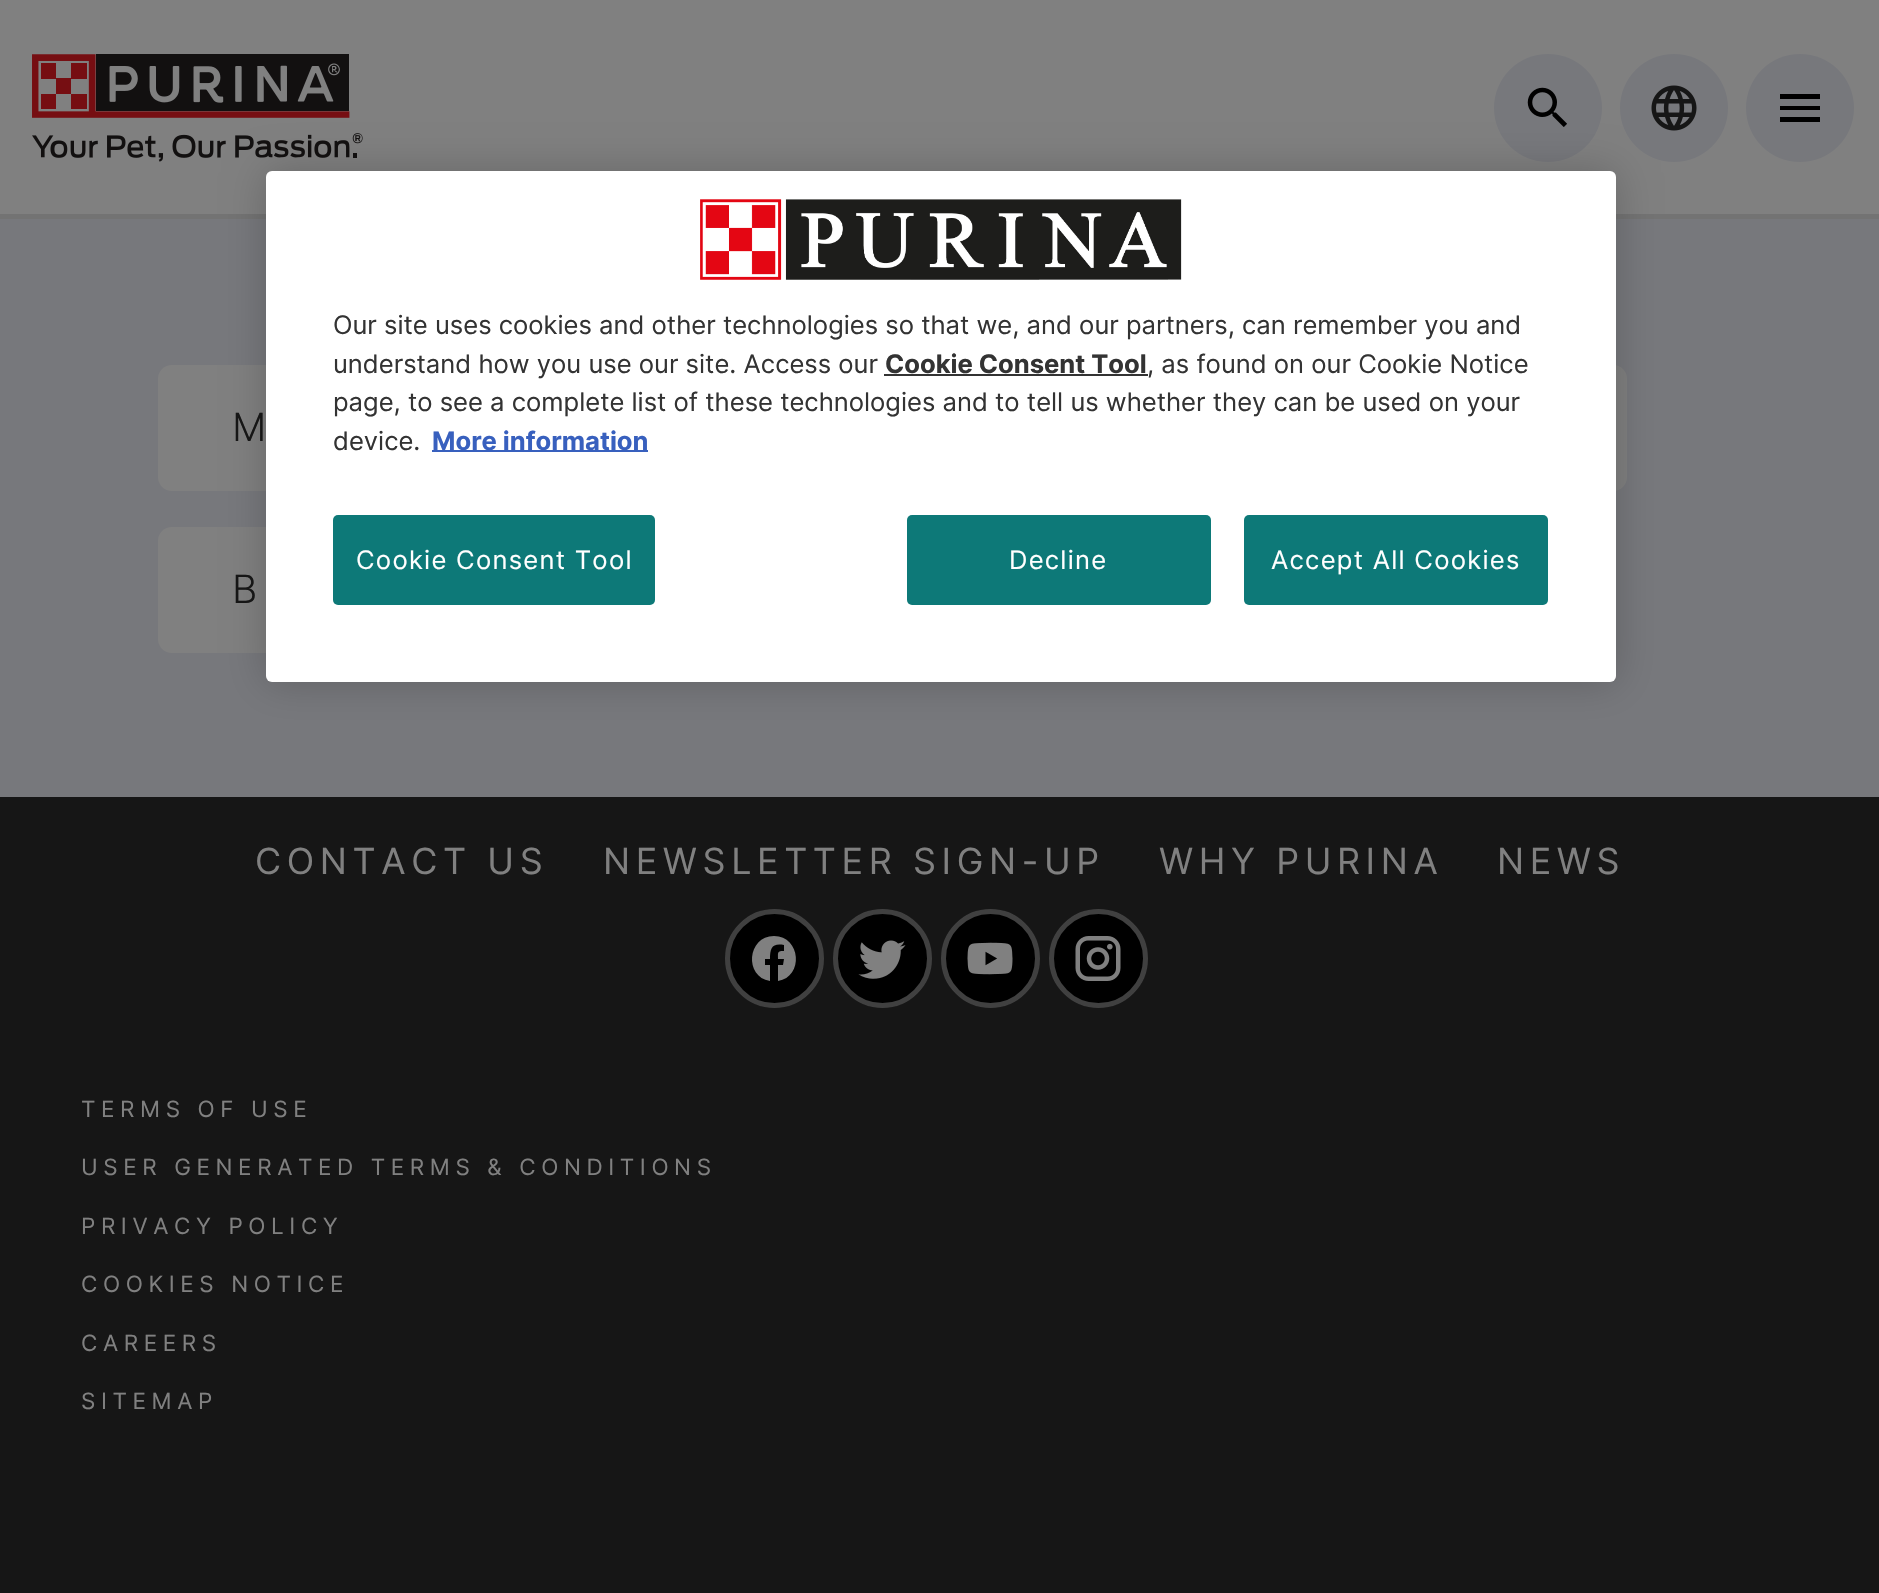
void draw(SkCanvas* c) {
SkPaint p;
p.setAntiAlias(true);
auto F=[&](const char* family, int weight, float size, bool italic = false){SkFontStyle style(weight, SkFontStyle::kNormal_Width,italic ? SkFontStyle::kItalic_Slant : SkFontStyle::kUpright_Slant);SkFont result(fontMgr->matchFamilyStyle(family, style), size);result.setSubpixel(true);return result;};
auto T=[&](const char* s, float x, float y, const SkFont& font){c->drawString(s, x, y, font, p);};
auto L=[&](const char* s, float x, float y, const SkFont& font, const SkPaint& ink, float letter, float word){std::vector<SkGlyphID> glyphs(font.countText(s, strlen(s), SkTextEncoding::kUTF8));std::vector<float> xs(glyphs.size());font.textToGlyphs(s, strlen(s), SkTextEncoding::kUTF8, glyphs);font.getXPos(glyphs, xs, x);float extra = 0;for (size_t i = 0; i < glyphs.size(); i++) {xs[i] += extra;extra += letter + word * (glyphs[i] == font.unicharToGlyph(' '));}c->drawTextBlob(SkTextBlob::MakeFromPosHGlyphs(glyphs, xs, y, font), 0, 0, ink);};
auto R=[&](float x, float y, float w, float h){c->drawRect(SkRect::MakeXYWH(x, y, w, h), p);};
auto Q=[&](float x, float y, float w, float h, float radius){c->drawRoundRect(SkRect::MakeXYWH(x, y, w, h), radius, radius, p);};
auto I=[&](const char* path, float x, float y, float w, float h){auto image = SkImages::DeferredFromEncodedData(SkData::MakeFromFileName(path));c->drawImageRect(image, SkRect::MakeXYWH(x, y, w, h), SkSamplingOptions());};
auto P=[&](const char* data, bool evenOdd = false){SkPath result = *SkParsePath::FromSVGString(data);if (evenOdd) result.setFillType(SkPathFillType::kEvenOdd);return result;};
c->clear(0xff77787c);
p.setColor(0xff808080);
R(0,0,1879,214);
p.setColor(0xff737373);
R(0,214,1879,5);
I("2.png",32,54,331,108);
p.setColor(0xff77787c);
c->drawCircle(1548,108,54,p);
I("3.png",1527,87,40,40);
c->drawCircle(1674,108,54,p);
I("4.png",1651,85,46,46);
p.setColor(0xff808080);
Q(158,365,639,126,14);
Q(833,365,794,126,14);
Q(158,527,463,126,14);
p.setColor(0x33000000);
p.setMaskFilter(SkMaskFilter::MakeBlur(kNormal_SkBlurStyle, 20));
c->drawRoundRect(SkRect::MakeXYWH(266,171,1350,511),6,6,p);
p.setMaskFilter(nullptr);
p.setColor(0xffffffff);
Q(266,171,1350,511,6);
I("1.png",700,199,482,81);
auto f1 = F("Inter",400,25.6);
p.setColor(0xff333333);
T("Our site uses cookies and other technologies so that we, and our partners, can remember you and",333,334,f1);
T("understand how you use our site. Access our",333,373,f1);
auto f2 = F("Inter",700,25.6);
T("Cookie Consent Tool",885,373,f2);
R(884,374,264,2);
T(", as found on our Cookie Notice",1147,373,f1);
T("page, to see a complete list of these technologies and to tell us whether they can be used on your",333,411,f1);
T("device.",333,450,f1);
p.setColor(0xff3860be);
R(432,450,216,2);
T("More information",432,450,f2);
p.setColor(0xff0d7978);
Q(333,515,322,90,5);
p.setColor(0xffffffff);
L("Cookie Consent Tool",356,569,f1,p,1.25,0);
p.setColor(0xff0d7978);
Q(907,515,304,90,5);
p.setColor(0xffffffff);
L("Decline",1009,569,f1,p,1.25,0);
p.setColor(0xff0d7978);
Q(1244,515,304,90,5);
p.setColor(0xffffffff);
L("Accept All Cookies",1271,569,f1,p,1.25,0);
p.setColor(0xff77787c);
c->drawCircle(1800,108,54,p);
p.setColor(0xff000000);
c->drawPath(P("M1780 94h40v5h-40v-5m0 12h40v4h-40v-4m0 11h40v5h-40z"),p);
auto f3 = F("Inter",300,39);
p.setColor(0xff161616);
T("M",232,441,f3);
T("B",232,603,f3);
R(0,797,1879,796);
auto f4 = F("Inter",400,36);
p.setColor(0xff808080);
L("CONTACT US",255,874,f4,p,5.6,0);
L("NEWSLETTER SIGN-UP",603,874,f4,p,5.6,0);
L("WHY PURINA",1159,874,f4,p,5.6,0);
L("NEWS",1497,874,f4,p,5.6,0);
p.setColor(0xff000000);
c->drawCircle(774.5,958.5,49.5,p);
p.setStroke(true);
p.setStrokeWidth(5);
p.setColor(0x80808080);
c->drawCircle(774.5,958.5,47,p);
p.setStroke(false);
p.setColor(0xff808080);
c->drawPath(P("M774 936c-27 0-30 41-4 45v-16h-5v-6h5c0-11 2-16 14-14v6c-7 0-6 1-6 8h6l-1 6h-5v16c26-4 23-45-4-45z"),p);
p.setColor(0xff000000);
c->drawCircle(882.5,958.5,49.5,p);
p.setStroke(true);
p.setColor(0x80808080);
c->drawCircle(882.5,958.5,47,p);
I("5.png",858,940,48,39);
p.setStroke(false);
p.setColor(0xff000000);
c->drawCircle(990.5,958.5,49.5,p);
p.setStroke(true);
p.setColor(0x80808080);
c->drawCircle(990.5,958.5,47,p);
I("6.png",967,942,46,33);
p.setStroke(false);
p.setColor(0xff000000);
c->drawCircle(1098.5,958.5,49.5,p);
p.setStroke(true);
p.setColor(0x80808080);
c->drawCircle(1098.5,958.5,47,p);
I("7.png",1075,936,46,45);
auto f5 = F("Inter",400,22.5);
p.setStroke(false);
p.setColor(0xff808080);
L("TERMS OF USE",81,1117,f5,p,5.6,0);
L("USER GENERATED TERMS & CONDITIONS",81,1175,f5,p,5.6,0);
L("PRIVACY POLICY",81,1234,f5,p,5.6,0);
L("COOKIES NOTICE",81,1292,f5,p,5.6,0);
L("CAREERS",81,1351,f5,p,5.6,0);
L("SITEMAP",81,1409,f5,p,5.6,0);
}
